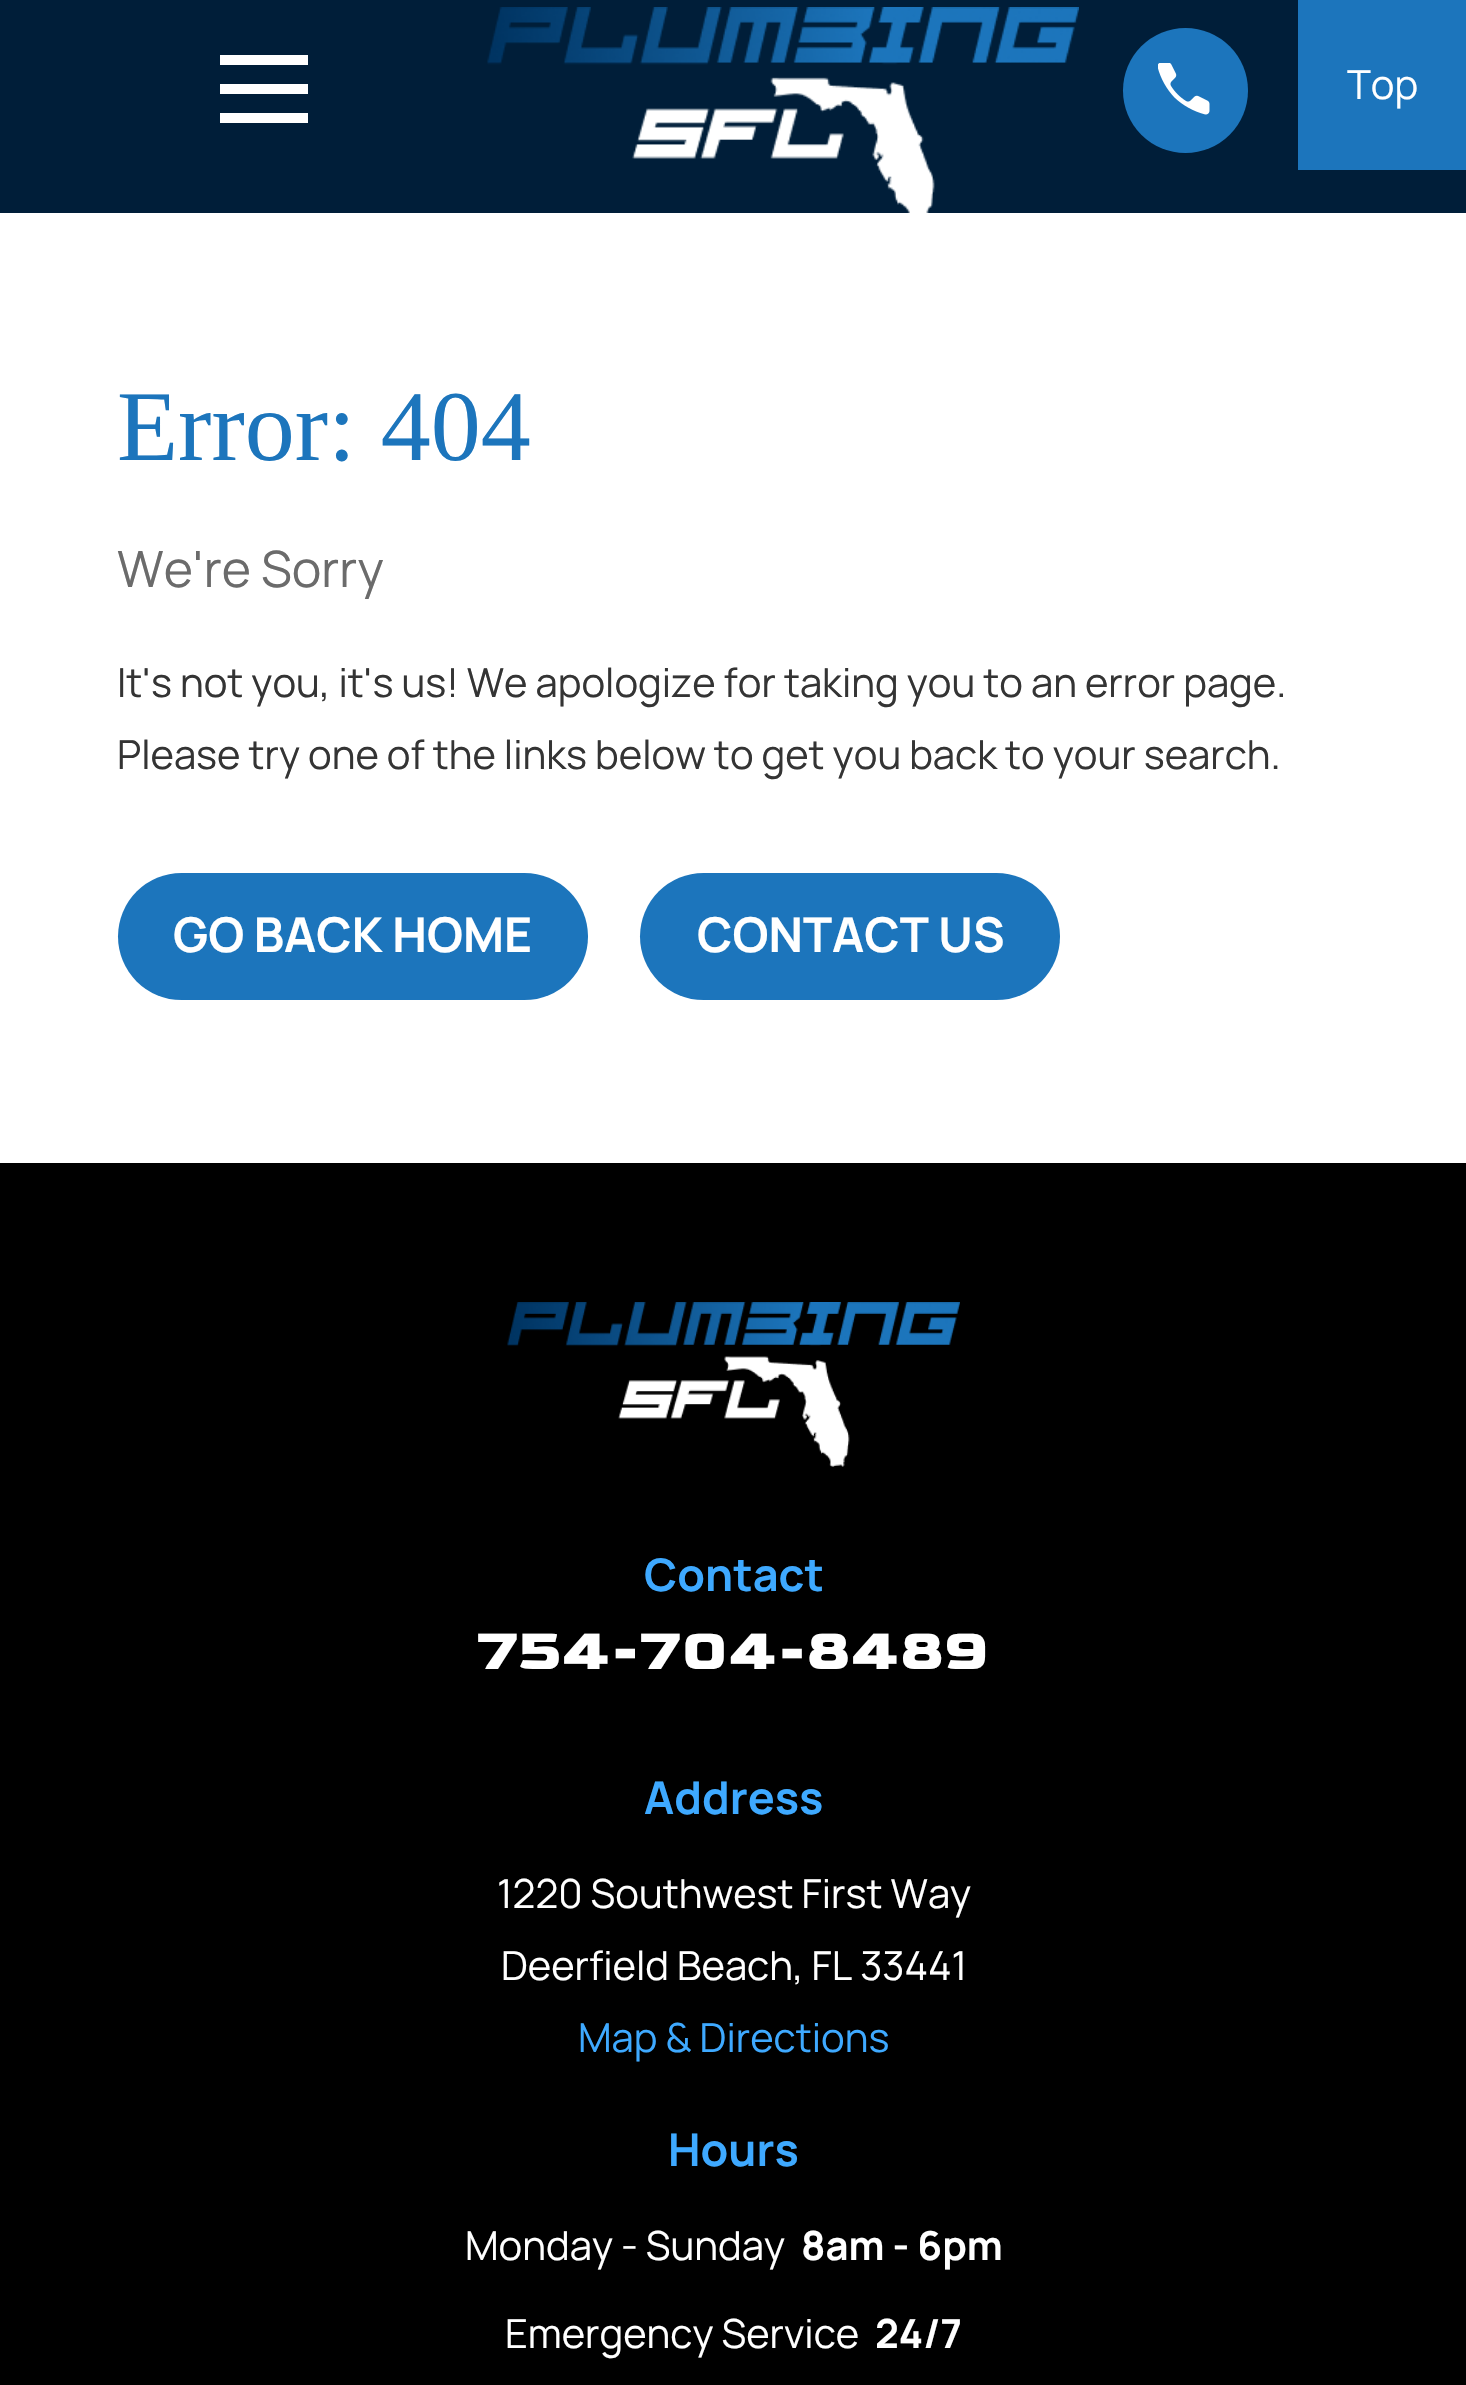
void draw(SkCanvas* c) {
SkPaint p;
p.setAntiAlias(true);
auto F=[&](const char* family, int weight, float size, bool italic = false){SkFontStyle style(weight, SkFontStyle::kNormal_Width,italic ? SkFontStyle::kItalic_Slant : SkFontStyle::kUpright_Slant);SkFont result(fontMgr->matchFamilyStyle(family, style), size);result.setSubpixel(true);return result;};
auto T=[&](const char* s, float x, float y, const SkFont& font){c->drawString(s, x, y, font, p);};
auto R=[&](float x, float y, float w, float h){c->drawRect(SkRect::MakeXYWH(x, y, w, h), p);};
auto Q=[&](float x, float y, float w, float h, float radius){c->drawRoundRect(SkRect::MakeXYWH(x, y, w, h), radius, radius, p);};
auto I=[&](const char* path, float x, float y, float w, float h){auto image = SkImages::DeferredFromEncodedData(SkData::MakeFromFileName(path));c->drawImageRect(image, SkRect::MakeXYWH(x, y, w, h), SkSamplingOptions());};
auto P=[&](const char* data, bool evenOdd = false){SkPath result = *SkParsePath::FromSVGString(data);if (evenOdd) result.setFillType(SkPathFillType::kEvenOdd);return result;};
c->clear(0xffffffff);
p.setColor(0xff001e39);
R(0,0,1466,213);
p.setColor(0xffffffff);
c->drawPath(P("M220 55v10h88v-10zm0 29v10h88v-10zm0 29v10h88v-10z"),p);
I("1.png",487,7,592,206);
p.setColor(0xff1c75bc);
c->drawCircle(1185.5,90.5,62.5,p);
I("2.png",1158,63,52,52);
R(1298,0,168,170);
auto f1 = F("Manrope",400,40);
p.setColor(0xffffffff);
T("Top",1347,99,f1);
auto f2 = F("Liberation Serif",400,100);
p.setColor(0xff1c75bc);
T("Error: 404",117,460,f2);
auto f3 = F("Manrope",400,50);
p.setColor(0xff6b6b6b);
T("We're Sorry",117,587,f3);
p.setColor(0xff343434);
T("It's not you, it's us! We apologize for taking you to an error page.",117,697,f1);
T("Please try one of the links below to get you back to your search.",117,769,f1);
p.setColor(0xff1c75bc);
Q(118,873,470,127,63.5);
auto f4 = F("Manrope",700,48);
p.setColor(0xffffffff);
T("GO BACK HOME",173,952,f4);
p.setColor(0xff1c75bc);
Q(640,873,420,127,63.5);
p.setColor(0xffffffff);
T("CONTACT US",697,952,f4);
p.setColor(0xff000000);
R(0,1163,1466,1222);
I("3.png",507,1302,453,165);
auto f5 = F("Manrope",700,45);
p.setColor(0xff3ea9ff);
T("Contact",644,1591,f5);
auto f6 = F("Goldman",700,60);
p.setColor(0xffffffff);
T("754-704-8489",477,1669,f6);
p.setColor(0xff3ea9ff);
T("Address",644,1814,f5);
p.setColor(0xffffffff);
T("1220 Southwest First Way",497,1908,f1);
T("Deerfield Beach, FL 33441",501,1980,f1);
p.setColor(0xff3ea9ff);
T("Map & Directions",578,2052,f1);
T("Hours",668,2166,f5);
p.setColor(0xffffffff);
T("Monday - Sunday",465,2260,f1);
auto f7 = F("Manrope",700,40);
T("8am - 6pm",801,2260,f7);
T("Emergency Service",505,2348,f1);
T("24/7",875,2348,f7);
}
